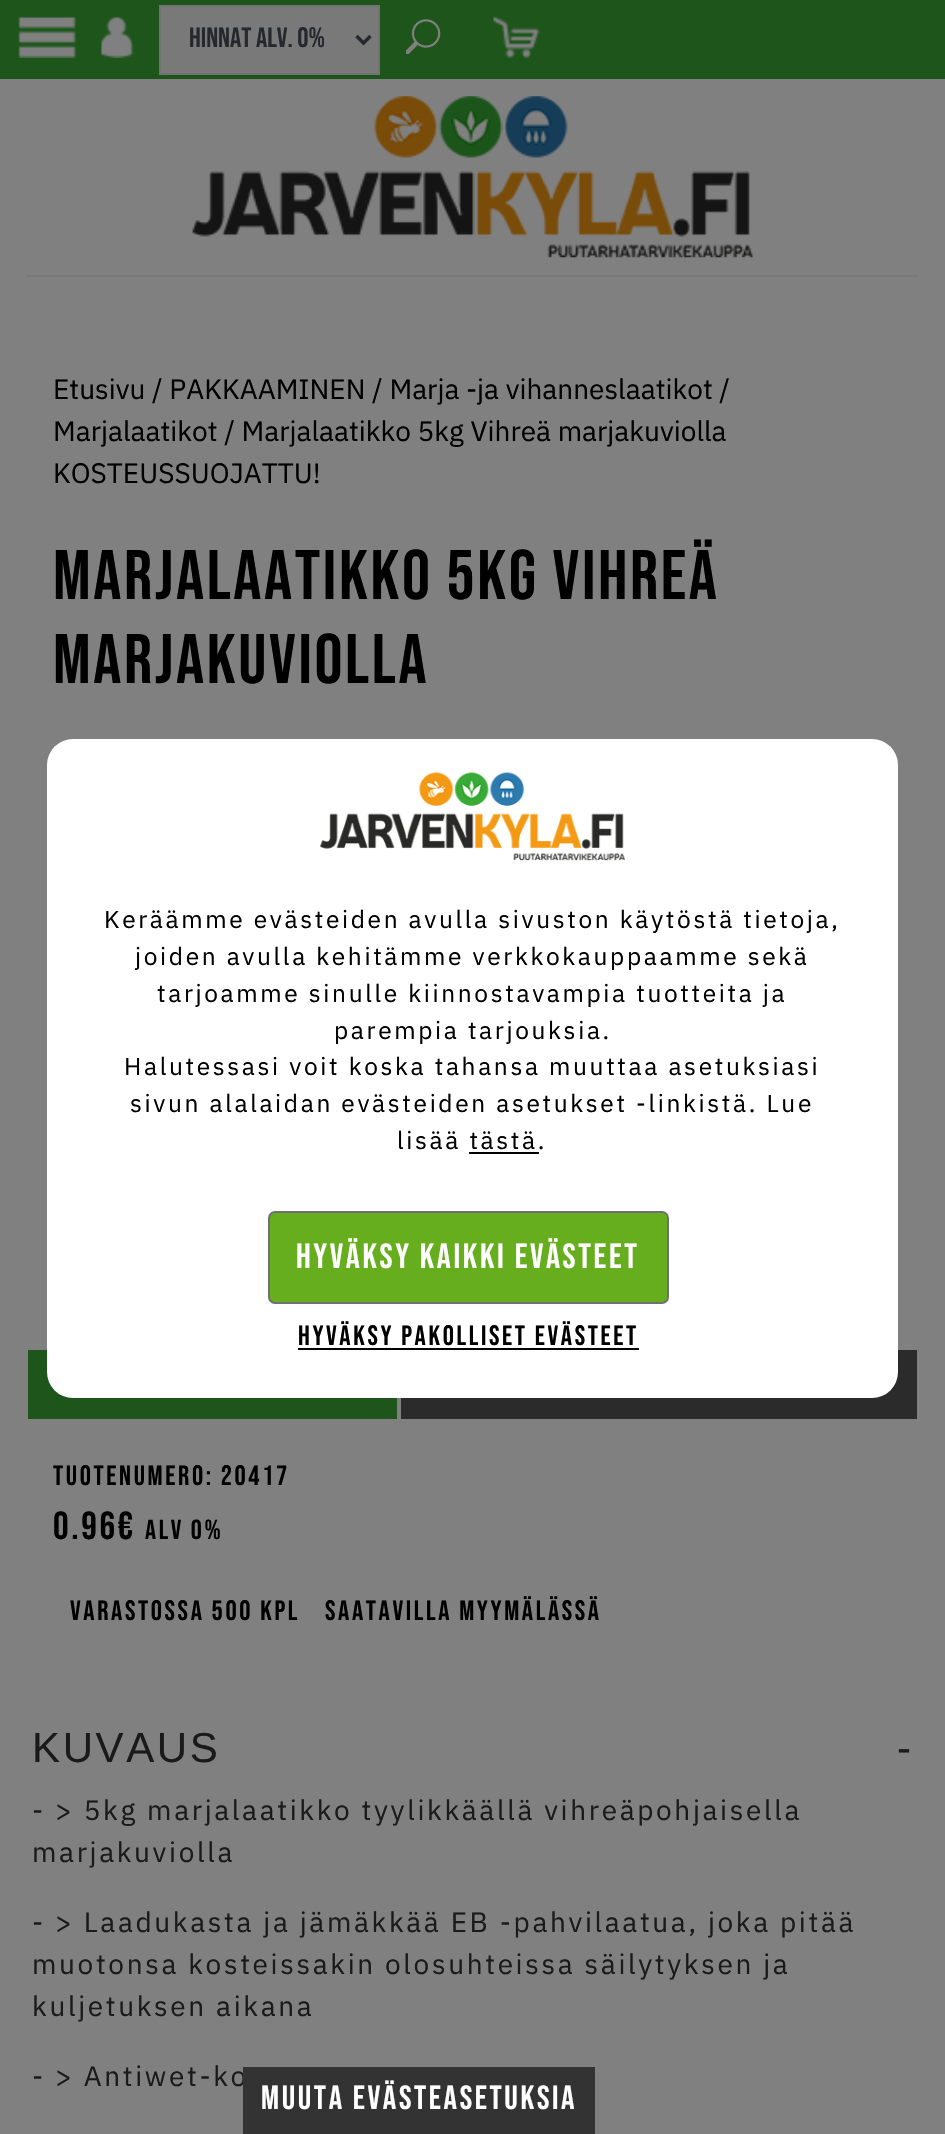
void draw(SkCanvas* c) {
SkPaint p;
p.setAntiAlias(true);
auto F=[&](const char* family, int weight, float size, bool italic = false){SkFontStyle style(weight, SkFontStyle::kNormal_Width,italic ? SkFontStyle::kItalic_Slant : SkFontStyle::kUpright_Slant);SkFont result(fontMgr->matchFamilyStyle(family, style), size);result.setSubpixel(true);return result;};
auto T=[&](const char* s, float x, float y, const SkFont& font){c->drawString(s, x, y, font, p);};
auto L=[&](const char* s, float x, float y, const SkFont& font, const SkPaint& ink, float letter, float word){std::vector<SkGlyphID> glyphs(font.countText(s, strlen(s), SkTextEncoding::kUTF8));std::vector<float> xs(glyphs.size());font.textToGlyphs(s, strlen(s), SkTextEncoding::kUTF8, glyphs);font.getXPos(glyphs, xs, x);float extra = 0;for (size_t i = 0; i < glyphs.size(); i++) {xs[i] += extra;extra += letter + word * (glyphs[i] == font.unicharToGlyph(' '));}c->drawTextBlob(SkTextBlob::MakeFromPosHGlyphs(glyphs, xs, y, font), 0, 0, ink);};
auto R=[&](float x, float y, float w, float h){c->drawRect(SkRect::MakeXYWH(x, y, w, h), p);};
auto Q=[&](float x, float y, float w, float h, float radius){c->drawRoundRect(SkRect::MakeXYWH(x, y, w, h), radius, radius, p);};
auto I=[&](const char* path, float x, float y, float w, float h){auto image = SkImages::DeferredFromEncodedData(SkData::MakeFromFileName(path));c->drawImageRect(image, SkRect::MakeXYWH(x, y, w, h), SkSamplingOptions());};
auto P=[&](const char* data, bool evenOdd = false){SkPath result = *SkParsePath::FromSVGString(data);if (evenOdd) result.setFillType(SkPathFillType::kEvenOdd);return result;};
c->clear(0xff808080);
p.setColor(0xff1d551b);
R(0,0,945,79);
I("1.png",18,16,58,42);
I("2.png",101,16,33,42);
p.setColor(0xff797979);
c->drawRect(SkRect::MakeXYWH(160,6,219,68),p);
p.setStroke(true);
p.setStrokeWidth(2);
p.setColor(0xff737373);
c->drawRect(SkRect::MakeXYWH(160,6,219,68),p);
p.setStrokeWidth(3.5);
p.setColor(0xff25282c);
c->drawPath(P("M356.5 36l7 7l7-7"),p);
auto f1 = F("Bebas Neue",400,28);
p.setStroke(false);
T("HINNAT ALV. 0%",189,47,f1);
I("3.png",406,19,35,35);
I("4.png",493,16,47,42);
p.setColor(0xff797979);
R(26,275,893,2);
I("5.png",192,96,561,162);
auto f2 = F("IBM Plex Sans",400,28);
p.setColor(0xff000000);
T("Etusivu / PAKKAAMINEN / Marja -ja vihanneslaatikot /",53,399,f2);
T("Marjalaatikot / Marjalaatikko 5kg Vihreä marjakuviolla",53,441,f2);
T("KOSTEUSSUOJATTU!",53,483,f2);
auto f3 = F("Bebas Neue",400,70);
L("Marjalaatikko 5kg Vihreä",53,599,f3,p,2.62,0);
L("marjakuviolla",53,683,f3,p,2.62,0);
p.setColor(0xff1d551b);
R(28,1350,369,69);
p.setColor(0xff2a2b2a);
R(401,1350,516,69);
p.setColor(0xff000000);
L("Tuotenumero: 20417",53,1485,f1,p,2.62,0);
auto f4 = F("Bebas Neue",400,39);
L("0.96€",53,1539,f4,p,2.62,0);
auto f5 = F("Bebas Neue",400,27.5);
L("alv 0%",145,1539,f5,p,2.62,0);
L("Varastossa 500 kpl",70,1620,f1,p,2.62,0);
L("Saatavilla myymälässä",325,1620,f1,p,2.62,0);
auto f6 = F("Liberation Sans",400,42);
p.setColor(0xff1a1a1a);
L("KUVAUS",32,1762,f6,p,2.62,0);
L("-",897,1762,f6,p,2.62,0);
L("- > 5kg marjalaatikko tyylikkäällä vihreäpohjaisella",32,1820,f2,p,2.62,0);
L("marjakuviolla",32,1862,f2,p,2.62,0);
L("- > Laadukasta ja jämäkkää EB -pahvilaatua, joka pitää",32,1932,f2,p,2.62,0);
L("muotonsa kosteissakin olosuhteissa säilytyksen ja",32,1974,f2,p,2.62,0);
L("kuljetuksen aikana",32,2016,f2,p,2.62,0);
L("- > Antiwet-ko",32,2086,f2,p,2.62,0);
p.setColor(0xffffffff);
Q(47,739,851,659,26);
I("6.png",320,772,305,89);
auto f7 = F("IBM Plex Sans",400,24.5);
p.setColor(0xff000000);
L("Keräämme evästeiden avulla sivuston käytöstä tietoja,",104,928,f7,p,2.62,0);
L("joiden avulla kehitämme verkkokauppaamme sekä",135,965,f7,p,2.62,0);
L("tarjoamme sinulle kiinnostavampia tuotteita ja",157,1002,f7,p,2.62,0);
L("parempia tarjouksia.",334,1039,f7,p,2.62,0);
L("Halutessasi voit koska tahansa muuttaa asetuksiasi",124,1075,f7,p,2.62,0);
L("sivun alalaidan evästeiden asetukset -linkistä. Lue",130,1112,f7,p,2.62,0);
L("lisää tästä.",397,1149,f7,p,2.62,0);
R(469,1152,70,2);
p.setColor(0xff67ae1f);
c->drawRoundRect(SkRect::MakeXYWH(269,1212,399,91),6,6,p);
p.setStroke(true);
p.setStrokeWidth(2);
p.setColor(0xff707070);
c->drawRoundRect(SkRect::MakeXYWH(269,1212,399,91),6,6,p);
auto f8 = F("Bebas Neue",400,35);
p.setStroke(false);
p.setColor(0xffffffff);
L("Hyväksy kaikki evästeet",296,1268,f8,p,2.62,0);
p.setColor(0xff000000);
L("Hyväksy pakolliset evästeet",298,1345,f1,p,2.62,0);
R(298,1348,341,2);
p.setColor(0xff333333);
R(243,2067,352,67);
auto f9 = F("Bebas Neue",400,33.5);
p.setColor(0xffffffff);
L("Muuta evästeasetuksia",261,2109,f9,p,2.62,0);
}
